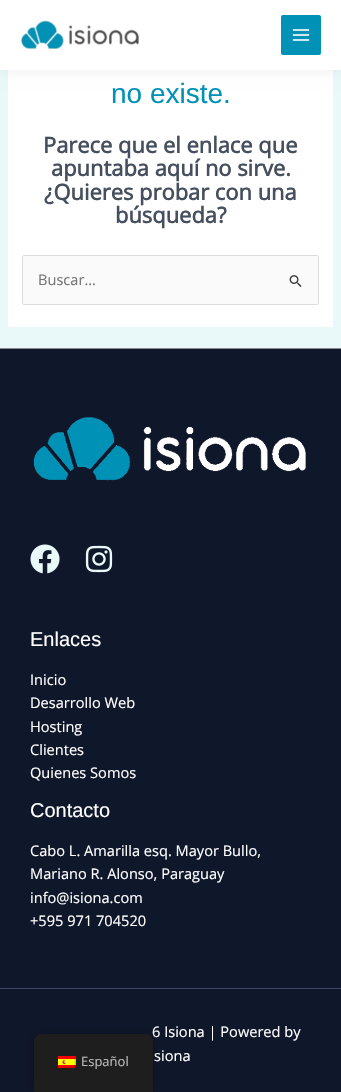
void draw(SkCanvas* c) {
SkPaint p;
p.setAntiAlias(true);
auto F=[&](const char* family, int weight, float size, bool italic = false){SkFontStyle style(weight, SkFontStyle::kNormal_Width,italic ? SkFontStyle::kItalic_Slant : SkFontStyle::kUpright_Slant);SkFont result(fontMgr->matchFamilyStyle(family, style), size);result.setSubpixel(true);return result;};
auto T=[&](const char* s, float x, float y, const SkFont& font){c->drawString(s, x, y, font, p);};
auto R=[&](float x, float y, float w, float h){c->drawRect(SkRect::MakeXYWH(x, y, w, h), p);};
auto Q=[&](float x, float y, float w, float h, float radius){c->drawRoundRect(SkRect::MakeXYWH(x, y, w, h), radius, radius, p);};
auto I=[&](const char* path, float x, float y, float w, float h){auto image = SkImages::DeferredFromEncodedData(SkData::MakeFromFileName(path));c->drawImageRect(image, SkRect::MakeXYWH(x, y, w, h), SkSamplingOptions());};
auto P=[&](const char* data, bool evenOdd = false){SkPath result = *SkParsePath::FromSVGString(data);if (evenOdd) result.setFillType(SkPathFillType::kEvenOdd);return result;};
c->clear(0xffe9f8f9);
p.setColor(0xffffffff);
R(8,70,325,257);
p.setColor(0x0f000000);
p.setMaskFilter(SkMaskFilter::MakeBlur(kNormal_SkBlurStyle, 6));
c->drawRect(SkRect::MakeXYWH(0,2,341,70),p);
p.setMaskFilter(nullptr);
p.setColor(0xffffffff);
R(0,0,341,70);
I("1.png",21,20,118,30);
p.setColor(0xff0091b7);
Q(281,15,40,40,2);
I("2.png",292,29,18,12);
auto f1 = F("Liberation Sans",400,28);
T("no existe.",111,103,f1);
auto f2 = F("Open Sans",700,21.9);
p.setColor(0xff454f5e);
T("Parece que el enlace que",43,153,f2);
T("apuntaba aquí no sirve.",51,176,f2);
T("¿Quieres probar con una",44,200,f2);
T("búsqueda?",115,223,f2);
p.setColor(0xfffafafa);
c->drawRoundRect(SkRect::MakeXYWH(22.5,255.5,296,49),1.5,1.5,p);
p.setStroke(true);
p.setStrokeWidth(1);
p.setColor(0xffdddddd);
c->drawRoundRect(SkRect::MakeXYWH(22.5,255.5,296,49),1.5,1.5,p);
auto f3 = F("Open Sans",400,14.6);
p.setStroke(false);
p.setColor(0xff757575);
T("Buscar...",38,285,f3);
I("3.png",289,275,13,12);
p.setColor(0xff0f172a);
R(0,349,341,743);
p.setColor(0xff8a8d95);
R(0,348,341,1);
I("4.png",33,417,273,64);
I("5.png",30,544,30,30);
I("6.png",85,545,28,28);
auto f4 = F("Liberation Sans",400,20);
p.setColor(0xffffffff);
T("Enlaces",30,646,f4);
T("Inicio",30,685,f3);
T("Desarrollo Web",30,708,f3);
T("Hosting",30,732,f3);
T("Clientes",30,755,f3);
T("Quienes Somos",30,778,f3);
T("Contacto",30,817,f4);
T("Cabo L. Amarilla esq. Mayor Bullo,",30,856,f3);
T("Mariano R. Alonso, Paraguay",30,879,f3);
T("info@isiona.com",30,903,f3);
T("+595 971 704520",30,926,f3);
p.setColor(0xff3f4469);
R(0,988,341,1);
p.setColor(0xffffffff);
T("6 Isiona | Powered by",152,1037,f3);
T("siona",154,1061,f3);
p.setColor(0x40000000);
p.setMaskFilter(SkMaskFilter::MakeBlur(kNormal_SkBlurStyle, 4));
c->drawRoundRect(SkRect::MakeXYWH(34,1034,119,58),8,8,p);
p.setMaskFilter(nullptr);
p.setColor(0xff1e1e1e);
c->drawPath(P("M42 1034h103c4.5 0 8 3.5 8 8v50h-119v-50c0-4.5 3.5-8 8-8z"),p);
I("7.png",58,1056,18,12);
auto f5 = F("Open Sans",400,13);
p.setColor(0xffbdbdbd);
T("Español",81,1066,f5);
}
